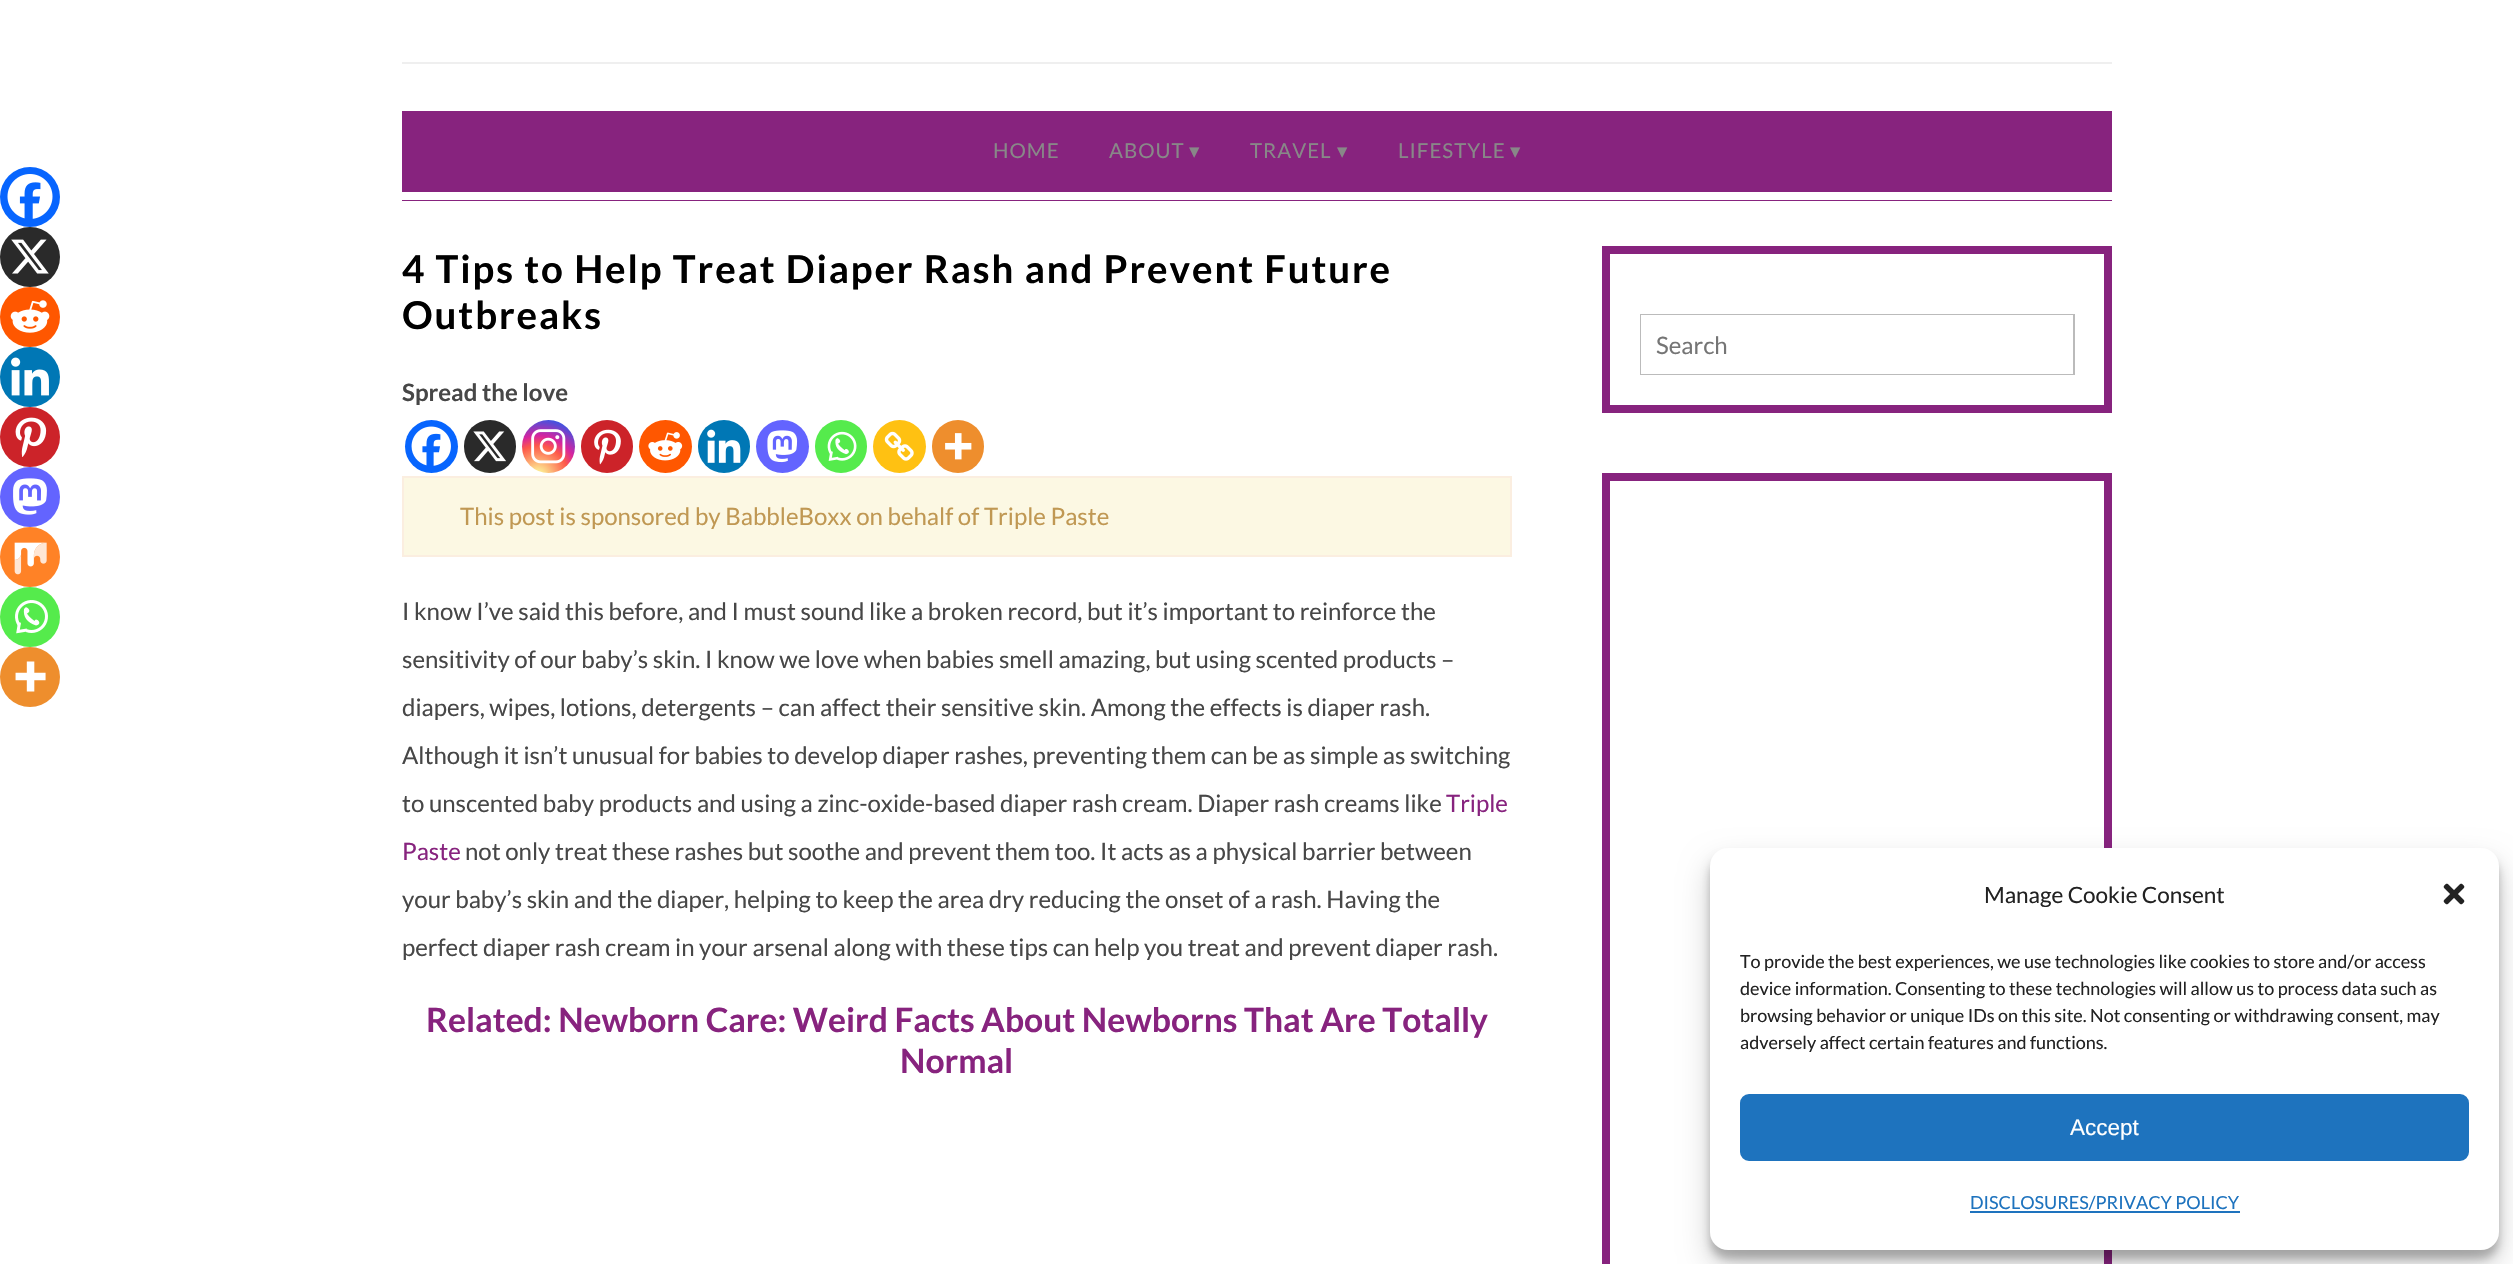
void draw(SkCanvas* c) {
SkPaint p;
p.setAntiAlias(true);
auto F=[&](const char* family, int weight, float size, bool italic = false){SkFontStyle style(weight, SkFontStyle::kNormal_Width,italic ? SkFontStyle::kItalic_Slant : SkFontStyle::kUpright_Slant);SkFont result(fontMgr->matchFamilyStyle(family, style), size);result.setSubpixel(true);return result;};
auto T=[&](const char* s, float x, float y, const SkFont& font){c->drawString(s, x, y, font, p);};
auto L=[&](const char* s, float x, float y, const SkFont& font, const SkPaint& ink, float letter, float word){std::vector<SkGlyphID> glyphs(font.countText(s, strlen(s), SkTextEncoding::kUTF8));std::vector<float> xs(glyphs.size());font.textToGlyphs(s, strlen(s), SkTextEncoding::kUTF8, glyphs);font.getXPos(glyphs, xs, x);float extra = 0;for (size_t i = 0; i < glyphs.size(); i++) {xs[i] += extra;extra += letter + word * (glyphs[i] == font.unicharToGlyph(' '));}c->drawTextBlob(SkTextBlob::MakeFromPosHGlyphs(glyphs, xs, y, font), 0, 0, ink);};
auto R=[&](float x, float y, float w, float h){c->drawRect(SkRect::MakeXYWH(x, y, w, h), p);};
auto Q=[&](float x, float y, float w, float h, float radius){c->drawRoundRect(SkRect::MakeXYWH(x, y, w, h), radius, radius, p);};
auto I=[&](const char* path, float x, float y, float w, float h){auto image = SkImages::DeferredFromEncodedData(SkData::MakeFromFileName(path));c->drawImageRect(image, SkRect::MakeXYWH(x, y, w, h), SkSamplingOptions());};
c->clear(0xffffffff);
p.setColor(0xff87237e);
R(402,200,1710,1);
p.setColor(0xffefefef);
R(402,62,1710,2);
p.setColor(0xff87237e);
R(402,111,1710,81);
auto f1 = F("Lato",400,20.5);
p.setColor(0xff888888);
L("HOME",993,158,f1,p,1,0);
L("ABOUT",1109,158,f1,p,1,0);
auto f2 = F("DejaVu Sans",400,20.5);
L("▾",1189,158,f2,p,1,0);
L("TRAVEL",1250,158,f1,p,1,0);
L("▾",1337,158,f2,p,1,0);
L("LIFESTYLE",1398,158,f1,p,1,0);
L("▾",1510,158,f2,p,1,0);
auto f3 = F("Lato",700,38.4);
p.setColor(0xff000000);
L("4 Tips to Help Treat Diaper Rash and Prevent Future",402,283,f3,p,1.92,0);
L("Outbreaks",402,329,f3,p,1.92,0);
p.setColor(0xff0765fe);
c->drawCircle(30,197,30,p);
I("1.png",7,174,46,45);
p.setColor(0xff2a2a2a);
c->drawCircle(30,257,30,p);
I("2.png",11,239,38,35);
p.setColor(0xffff5700);
c->drawCircle(30,317,30,p);
I("3.png",10,300,40,33);
p.setColor(0xff0077b5);
c->drawCircle(30,377,30,p);
I("4.png",11,357,38,39);
p.setColor(0xffcc2329);
c->drawCircle(30,437,30,p);
I("5.png",15,417,32,40);
p.setColor(0xff6364ff);
c->drawCircle(30,497,30,p);
I("6.png",13,478,34,37);
p.setColor(0xffff8226);
c->drawCircle(30,557,30,p);
I("7.png",14,542,33,33);
p.setColor(0xff55eb4c);
c->drawCircle(30,617,30,p);
I("8.png",15,600,33,34);
p.setColor(0xffee8e2d);
c->drawCircle(30,677,30,p);
I("9.png",15,661,31,31);
auto f4 = F("Lato",700,24);
p.setColor(0xff474747);
T("Spread the love",402,401,f4);
p.setColor(0xff0765fe);
c->drawCircle(431.5,446.5,26.5,p);
I("10.png",411,426,40,40);
p.setColor(0xff2a2a2a);
Q(464,420,52,53,26);
I("11.png",473,431,33,31);
{
const SkColor colors[] = {0xfffdf497,0xfffdf497,0xfffd5949,0xffd6249f,0xff285aeb};
const float stops[] = {0,.05,.45,.6,.9};
p.setShader(SkGradientShader::MakeRadial({538,476}, 67, colors, stops, 5, SkTileMode::kClamp));
p.setAlpha(255);
}
c->drawCircle(548.5,446.5,26.5,p);
I("12.png",531,429,35,35);
p.setShader(nullptr);
p.setColor(0xffcc2329);
Q(581,420,52,53,26);
I("13.png",594,429,27,36);
p.setColor(0xffff5700);
c->drawCircle(665.5,446.5,26.5,p);
I("14.png",648,432,35,29);
p.setColor(0xff0077b5);
Q(698,420,52,53,26);
I("15.png",707,429,34,34);
p.setColor(0xff6364ff);
c->drawCircle(782.5,446.5,26.5,p);
I("16.png",767,430,31,33);
p.setColor(0xff55eb4c);
Q(815,420,52,53,26);
I("17.png",827,431,30,30);
p.setColor(0xffffc112);
c->drawCircle(899.5,446.5,26.5,p);
I("18.png",884,431,30,30);
p.setColor(0xffee8e2d);
Q(932,420,52,53,26);
I("19.png",945,433,27,27);
p.setColor(0xfffcf8e3);
c->drawRect(SkRect::MakeXYWH(403,477,1108,79),p);
p.setStroke(true);
p.setStrokeWidth(2);
p.setColor(0xfffbeee0);
c->drawRect(SkRect::MakeXYWH(403,477,1108,79),p);
auto f5 = F("Lato",400,24);
p.setStroke(false);
p.setColor(0xffc09853);
T("This post is sponsored by BabbleBoxx on behalf of Triple Paste",460,525,f5);
p.setColor(0xff474747);
T("I know I’ve said this before, and I must sound like a broken record, but it’s important to reinforce the",402,620,f5);
T("sensitivity of our baby’s skin. I know we love when babies smell amazing, but using scented products –",402,668,f5);
T("diapers, wipes, lotions, detergents – can affect their sensitive skin. Among the effects is diaper rash.",402,716,f5);
T("Although it isn’t unusual for babies to develop diaper rashes, preventing them can be as simple as switching",402,764,f5);
T("to unscented baby products and using a zinc-oxide-based diaper rash cream. Diaper rash creams like",402,812,f5);
p.setColor(0xff87237e);
T("Triple",1446,812,f5);
T("Paste",402,860,f5);
p.setColor(0xff474747);
T("not only treat these rashes but soothe and prevent them too. It acts as a physical barrier between",465,860,f5);
T("your baby’s skin and the diaper, helping to keep the area dry reducing the onset of a rash. Having the",402,908,f5);
T("perfect diaper rash cream in your arsenal along with these tips can help you treat and prevent diaper rash.",402,956,f5);
auto f6 = F("Lato",700,33.6);
p.setColor(0xff87237e);
T("Related: Newborn Care: Weird Facts About Newborns That Are Totally",426,1032,f6);
T("Normal",900,1073,f6);
p.setStroke(true);
p.setStrokeWidth(8);
c->drawRect(SkRect::MakeXYWH(1606,250,502,159),p);
p.setStrokeWidth(2);
p.setColor(0xffbbbbbb);
c->drawRect(SkRect::MakeXYWH(1641,315,433,59),p);
p.setStroke(false);
p.setColor(0xffffffff);
R(1641,315,432,59);
p.setColor(0xff757575);
T("Search",1656,354,f5);
p.setStroke(true);
p.setStrokeWidth(8);
p.setColor(0xff87237e);
c->drawRect(SkRect::MakeXYWH(1606,477,502,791),p);
p.setStroke(false);
p.setColor(0x3b000000);
p.setMaskFilter(SkMaskFilter::MakeBlur(kNormal_SkBlurStyle, 4.5));
c->drawRoundRect(SkRect::MakeXYWH(1710,857,789,402),18,18,p);
p.setMaskFilter(nullptr);
p.setColor(0x30000000);
p.setMaskFilter(SkMaskFilter::MakeBlur(kNormal_SkBlurStyle, 15));
c->drawRoundRect(SkRect::MakeXYWH(1710,863,789,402),18,18,p);
p.setMaskFilter(nullptr);
p.setColor(0xffffffff);
Q(1710,848,789,402,18);
auto f7 = F("Lato",400,22.5);
p.setColor(0xff222222);
T("Manage Cookie Consent",1984,903,f7);
I("20.png",2443,883,22,22);
auto f8 = F("Lato",400,18);
T("To provide the best experiences, we use technologies like cookies to store and/or access",1740,968,f8);
T("device information. Consenting to these technologies will allow us to process data such as",1740,995,f8);
T("browsing behavior or unique IDs on this site. Not consenting or withdrawing consent, may",1740,1022,f8);
T("adversely affect certain features and functions.",1740,1049,f8);
p.setColor(0xff1e73be);
c->drawRoundRect(SkRect::MakeXYWH(1741,1095,727,65),8,8,p);
p.setStroke(true);
p.setStrokeWidth(2);
c->drawRoundRect(SkRect::MakeXYWH(1741,1095,727,65),8,8,p);
auto f9 = F("Liberation Sans",400,22.5);
p.setStroke(false);
p.setColor(0xffffffff);
T("Accept",2070,1135,f9);
p.setColor(0xff1e73be);
T("DISCLOSURES/PRIVACY POLICY",1970,1209,f8);
R(1970,1211,270,2);
}
